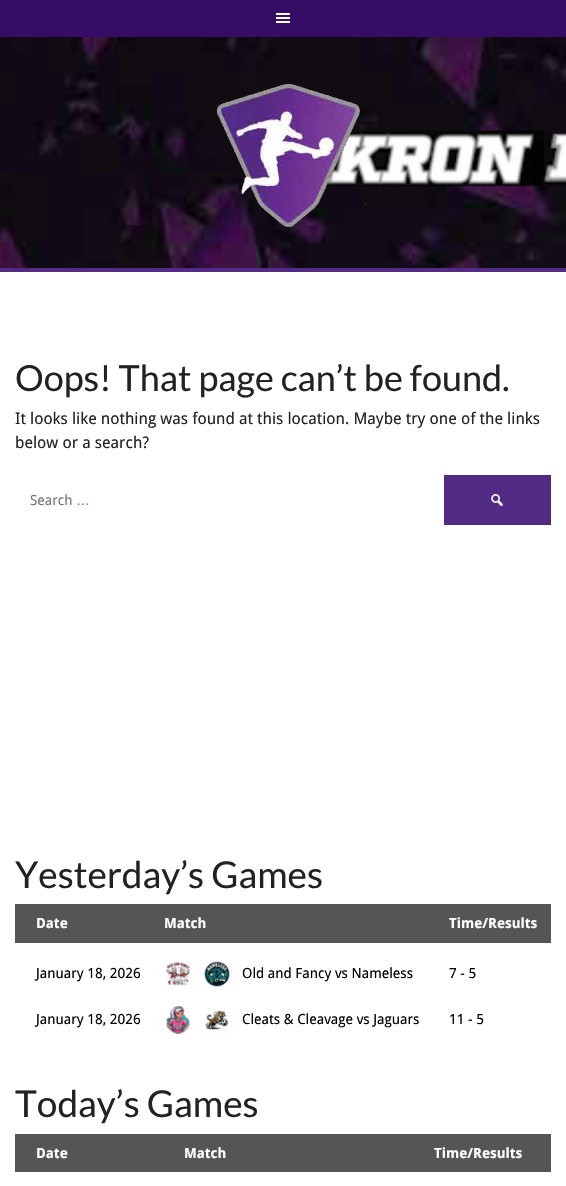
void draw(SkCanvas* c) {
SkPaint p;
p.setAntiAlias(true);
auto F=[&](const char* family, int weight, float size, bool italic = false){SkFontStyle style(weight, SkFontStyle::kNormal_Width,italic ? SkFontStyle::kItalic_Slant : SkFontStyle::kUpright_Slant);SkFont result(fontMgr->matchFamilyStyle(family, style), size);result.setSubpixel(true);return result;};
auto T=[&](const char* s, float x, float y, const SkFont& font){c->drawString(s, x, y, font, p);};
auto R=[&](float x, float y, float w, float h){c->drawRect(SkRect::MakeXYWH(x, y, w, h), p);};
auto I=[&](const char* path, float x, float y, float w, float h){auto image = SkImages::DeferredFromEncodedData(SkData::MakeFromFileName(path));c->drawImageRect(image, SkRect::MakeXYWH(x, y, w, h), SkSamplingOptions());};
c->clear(0xffffffff);
p.setColor(0xff532b84);
R(0,268,566,4);
I("1.png",0,37,566,231);
p.setColor(0xff350d66);
R(0,0,566,37);
I("2.png",276,13,14,10);
I("3.png",217,84,149,143);
auto f1 = F("Lato",400,36);
p.setColor(0xff222222);
T("Oops! That page can’t be found.",15,391,f1);
auto f2 = F("Droid Sans",400,16);
T("It looks like nothing was found at this location. Maybe try one of the links",15,424,f2);
T("below or a search?",15,448,f2);
auto f3 = F("Droid Sans",400,14);
p.setColor(0xff757575);
T("Search",30,505,f3);
auto f4 = F("Liberation Sans",400,14);
T("…",76,505,f4);
p.setColor(0xff532b84);
R(444,475,107,50);
I("4.png",491,494,12,12);
auto f5 = F("Lato",400,37);
p.setColor(0xff222222);
T("Yesterday’s Games",15,888,f5);
p.setColor(0xff555555);
R(15,904,536,39);
auto f6 = F("Droid Sans",700,14);
p.setColor(0xffffffff);
T("Date",36,928,f6);
T("Match",164,928,f6);
T("Time/Results",449,928,f6);
p.setColor(0xff000000);
T("January 18, 2026",36,978,f3);
I("5.png",165,961,25,25);
I("6.png",204,961,26,26);
T("Old and Fancy vs Nameless",242,978,f3);
T("7 - 5",449,978,f3);
T("January 18, 2026",36,1024,f3);
I("7.png",166,1006,24,28);
I("8.png",203,1010,26,24);
T("Cleats & Cleavage vs Jaguars",242,1024,f3);
T("11 - 5",449,1024,f3);
p.setColor(0xff222222);
T("Today’s Games",15,1117,f5);
p.setColor(0xff555555);
R(15,1134,536,38);
p.setColor(0xffffffff);
T("Date",36,1158,f6);
T("Match",184,1158,f6);
T("Time/Results",434,1158,f6);
}
